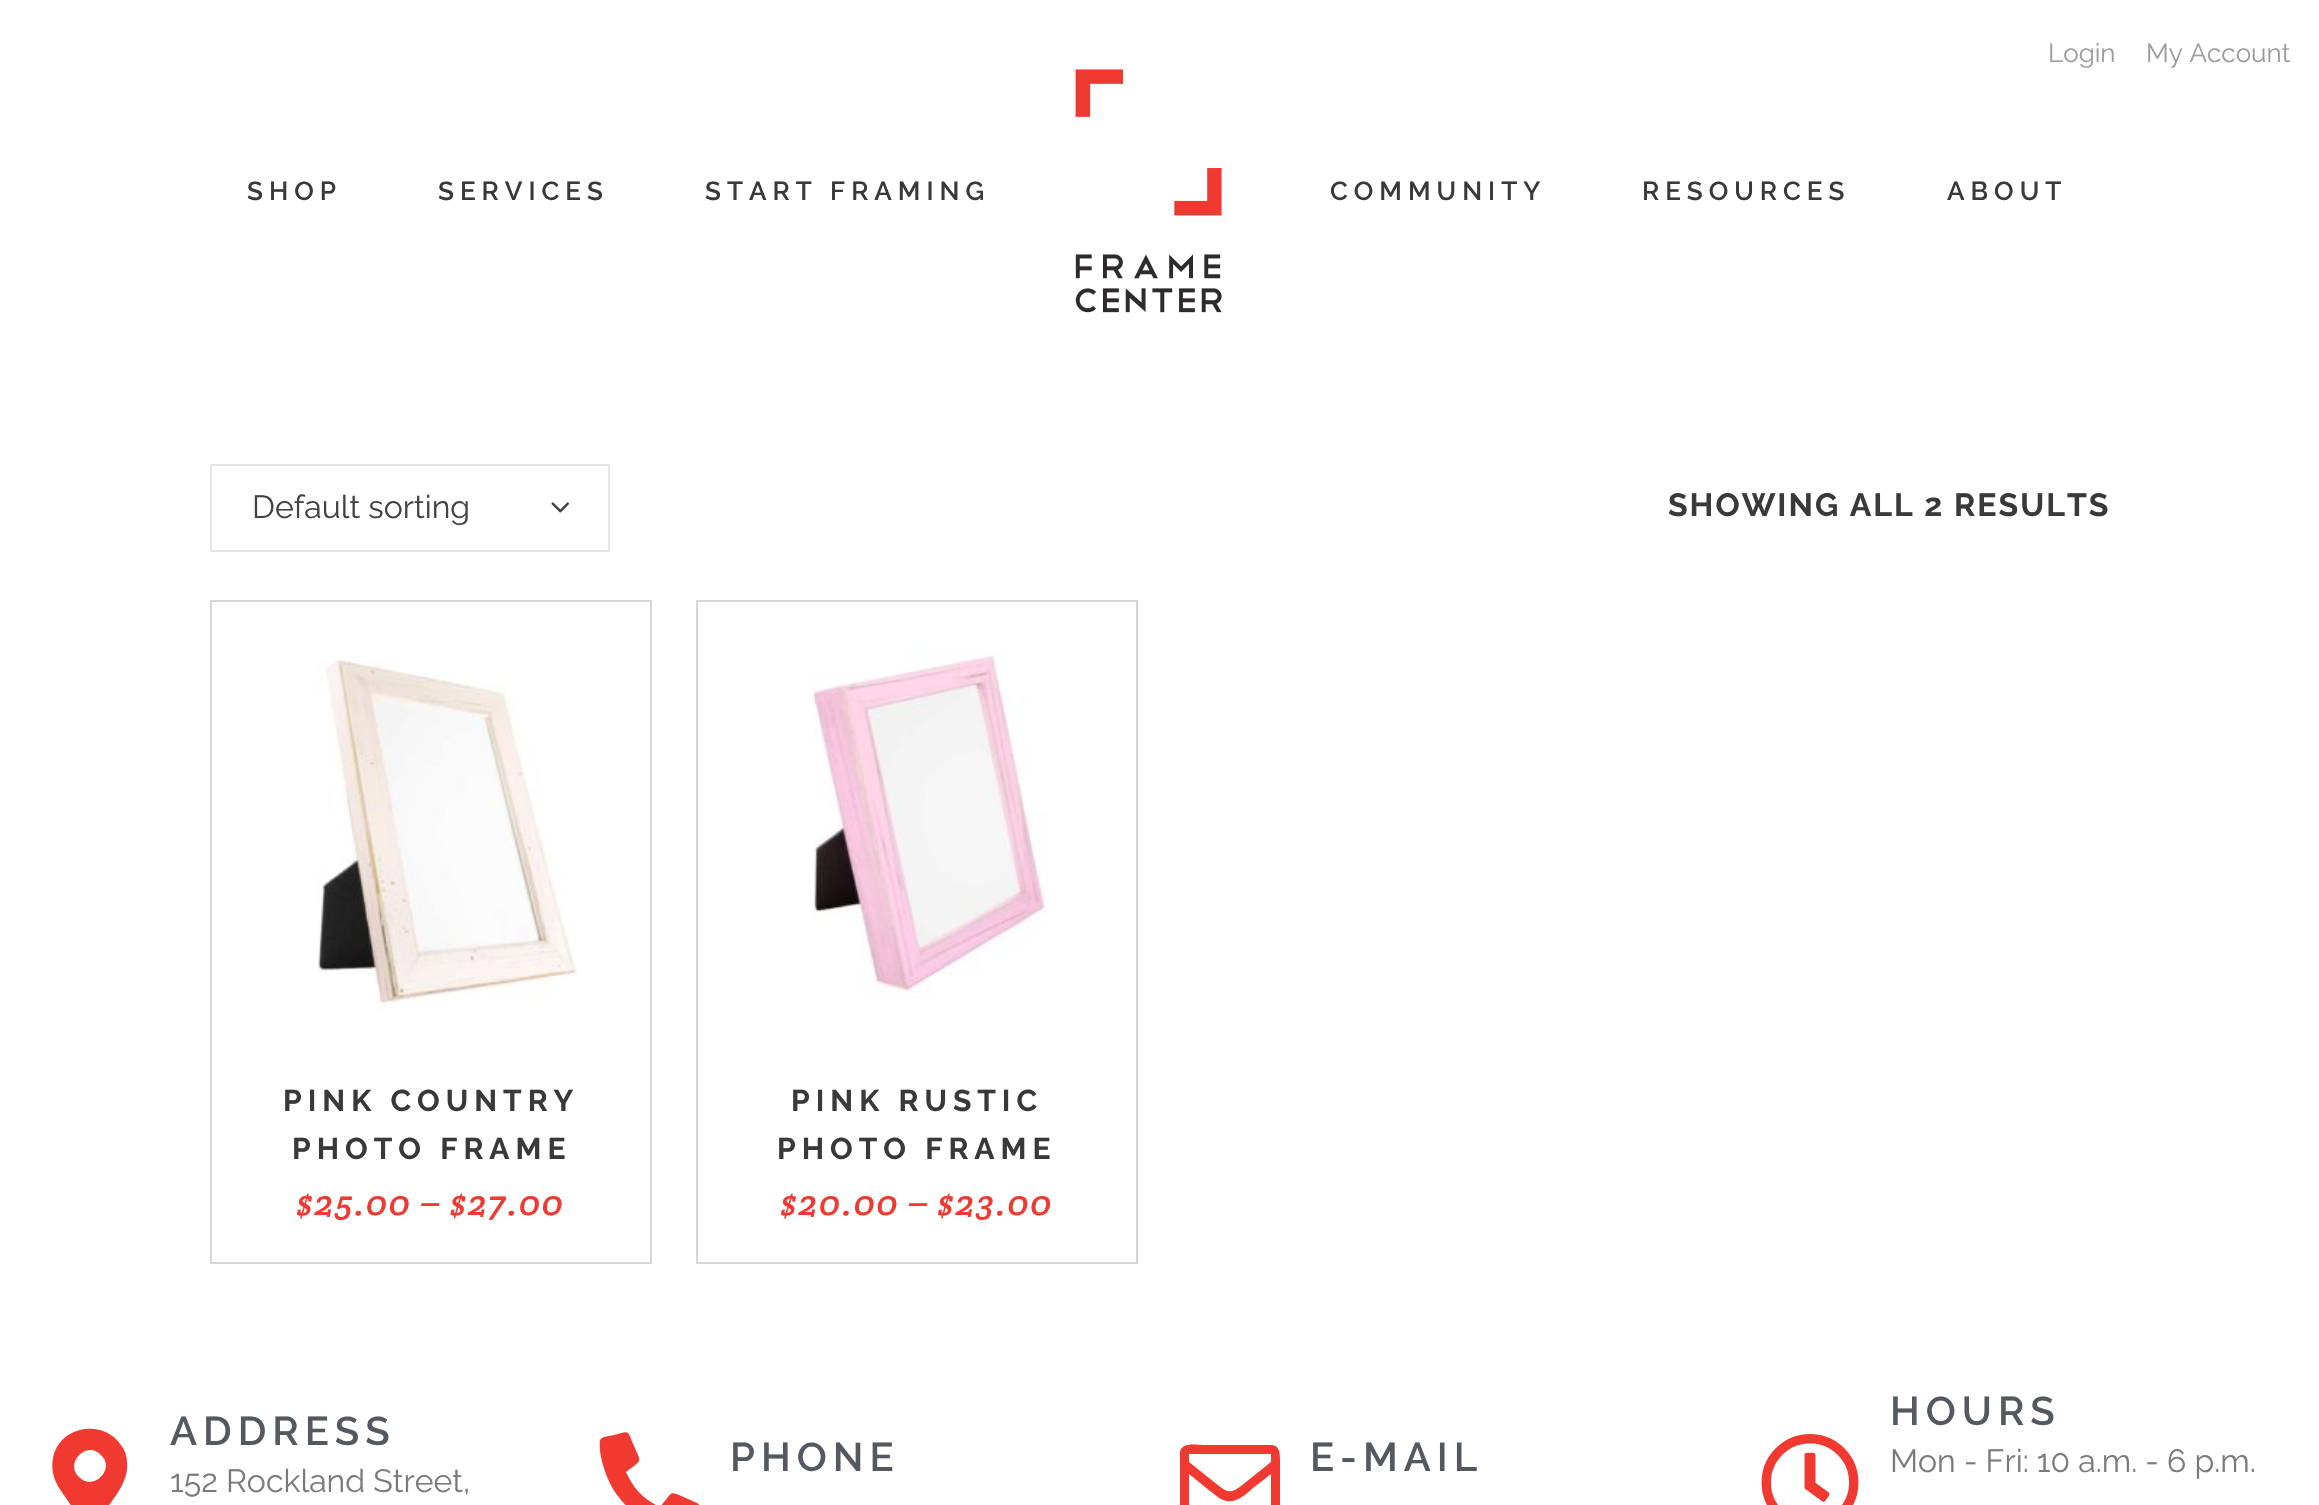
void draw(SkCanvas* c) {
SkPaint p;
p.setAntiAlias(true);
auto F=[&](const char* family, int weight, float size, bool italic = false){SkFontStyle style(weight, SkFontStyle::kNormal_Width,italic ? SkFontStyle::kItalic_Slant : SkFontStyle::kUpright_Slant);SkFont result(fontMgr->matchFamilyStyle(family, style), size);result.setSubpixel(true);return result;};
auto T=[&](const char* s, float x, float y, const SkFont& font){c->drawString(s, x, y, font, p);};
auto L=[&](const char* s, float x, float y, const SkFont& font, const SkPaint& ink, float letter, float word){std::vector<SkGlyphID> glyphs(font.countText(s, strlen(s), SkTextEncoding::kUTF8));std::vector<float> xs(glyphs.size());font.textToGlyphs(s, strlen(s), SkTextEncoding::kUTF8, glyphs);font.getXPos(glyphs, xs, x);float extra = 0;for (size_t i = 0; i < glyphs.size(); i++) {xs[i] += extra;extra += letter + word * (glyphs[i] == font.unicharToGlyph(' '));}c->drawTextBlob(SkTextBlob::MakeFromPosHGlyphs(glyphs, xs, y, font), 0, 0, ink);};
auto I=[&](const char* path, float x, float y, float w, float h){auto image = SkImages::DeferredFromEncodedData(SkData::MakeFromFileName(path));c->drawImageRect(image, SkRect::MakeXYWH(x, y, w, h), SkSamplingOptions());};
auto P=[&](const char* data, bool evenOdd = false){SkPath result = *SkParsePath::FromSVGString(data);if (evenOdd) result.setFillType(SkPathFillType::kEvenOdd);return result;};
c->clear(0xffffffff);
auto f1 = F("Raleway",400,26);
p.setColor(0xff9d9d9d);
T("Login",2048,62,f1);
T("My Account",2146,62,f1);
auto f2 = F("Raleway",600,26);
p.setColor(0xff393939);
L("SHOP",247,200,f2,p,6,0);
L("SERVICES",438,200,f2,p,6,0);
L("START FRAMING",705,200,f2,p,6,0);
I("1.png",1075,69,147,244);
L("COMMUNITY",1330,200,f2,p,6,0);
L("RESOURCES",1642,200,f2,p,6,0);
L("ABOUT",1947,200,f2,p,6,0);
p.setStroke(true);
p.setStrokeWidth(2);
p.setColor(0xffe6e6e6);
c->drawRect(SkRect::MakeXYWH(211,465,398,86),p);
auto f3 = F("Raleway",400,32);
p.setStroke(false);
p.setColor(0xff424242);
T("Default sorting",252,518,f3);
I("2.png",551,502,19,11);
auto f4 = F("Raleway",700,32);
p.setColor(0xff393939);
L("SHOWING ALL 2 RESULTS",1668,516,f4,p,2,0);
p.setStroke(true);
p.setColor(0xffd7d7d7);
c->drawRect(SkRect::MakeXYWH(211,601,440,662),p);
I("3.png",317,657,260,352);
auto f5 = F("Raleway",700,30);
p.setStroke(false);
p.setColor(0xff393939);
L("PINK COUNTRY",283,1111,f5,p,6,0);
L("PHOTO FRAME",292,1159,f5,p,6,0);
auto f6 = F("Crete Round",400,36,true);
p.setColor(0xffef3931);
L("$25.00 – $27.00",297,1215,f6,p,2,0);
p.setStroke(true);
p.setColor(0xffd7d7d7);
c->drawRect(SkRect::MakeXYWH(697,601,440,662),p);
I("4.png",812,649,237,350);
p.setStroke(false);
p.setColor(0xff393939);
L("PINK RUSTIC",791,1111,f5,p,6,0);
L("PHOTO FRAME",777,1159,f5,p,6,0);
p.setColor(0xffef3931);
L("$20.00 – $23.00",781,1215,f6,p,2,0);
c->drawPath(P("M86 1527l-16-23c-6-10-15-19-17-31c-1-5-1-10 0-15c6-32 50-40 68-13c4 5 6 11 6 17c2 19-12 34-22 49c-3 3-10 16-13 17c-2 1-5 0-6-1zm-7-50c14 15 37-8 22-22c-14-15-37 8-22 22z"),p);
auto f7 = F("Raleway",600,40);
p.setColor(0xff54595f);
L("ADDRESS",170,1445,f7,p,6,0);
p.setColor(0xff7a7a7a);
T("152 Rockland Street,",170,1492,f3);
p.setColor(0xffef3931);
c->drawPath(P("M697 1503c2 1 3 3 3 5l-3 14c-1 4-1 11-6 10c-8 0-11 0-18-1c-32-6-60-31-69-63c-2-5-3-11-4-17c-1-15 0-13 14-16c16-4 13-6 20 11c8 18 8 13-8 26c7 16 18 28 34 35l8-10c4-5 5-4 11-2z"),p);
p.setColor(0xff54595f);
L("PHONE",730,1471,f7,p,6,0);
p.setColor(0xffef3931);
c->drawPath(P("M1271 1445c10 0 9 11 9 19v37c0 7 1 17-7 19h-84c-10 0-9-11-9-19v-49c2-10 16-7 23-7zm0 9h-82v8l30 24c9 7 13 7 22 0l30-24zm-82 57h82v-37l-18 14c-8 7-18 17-30 12c-5-2-8-6-13-9l-21-17z"),p);
p.setColor(0xff54595f);
L("E-MAIL",1310,1471,f7,p,6,0);
I("5.png",1761,1434,98,71);
L("HOURS",1890,1425,f7,p,6,0);
p.setColor(0xff7a7a7a);
T("Mon - Fri: 10 a.m. - 6 p.m.",1890,1472,f3);
}
